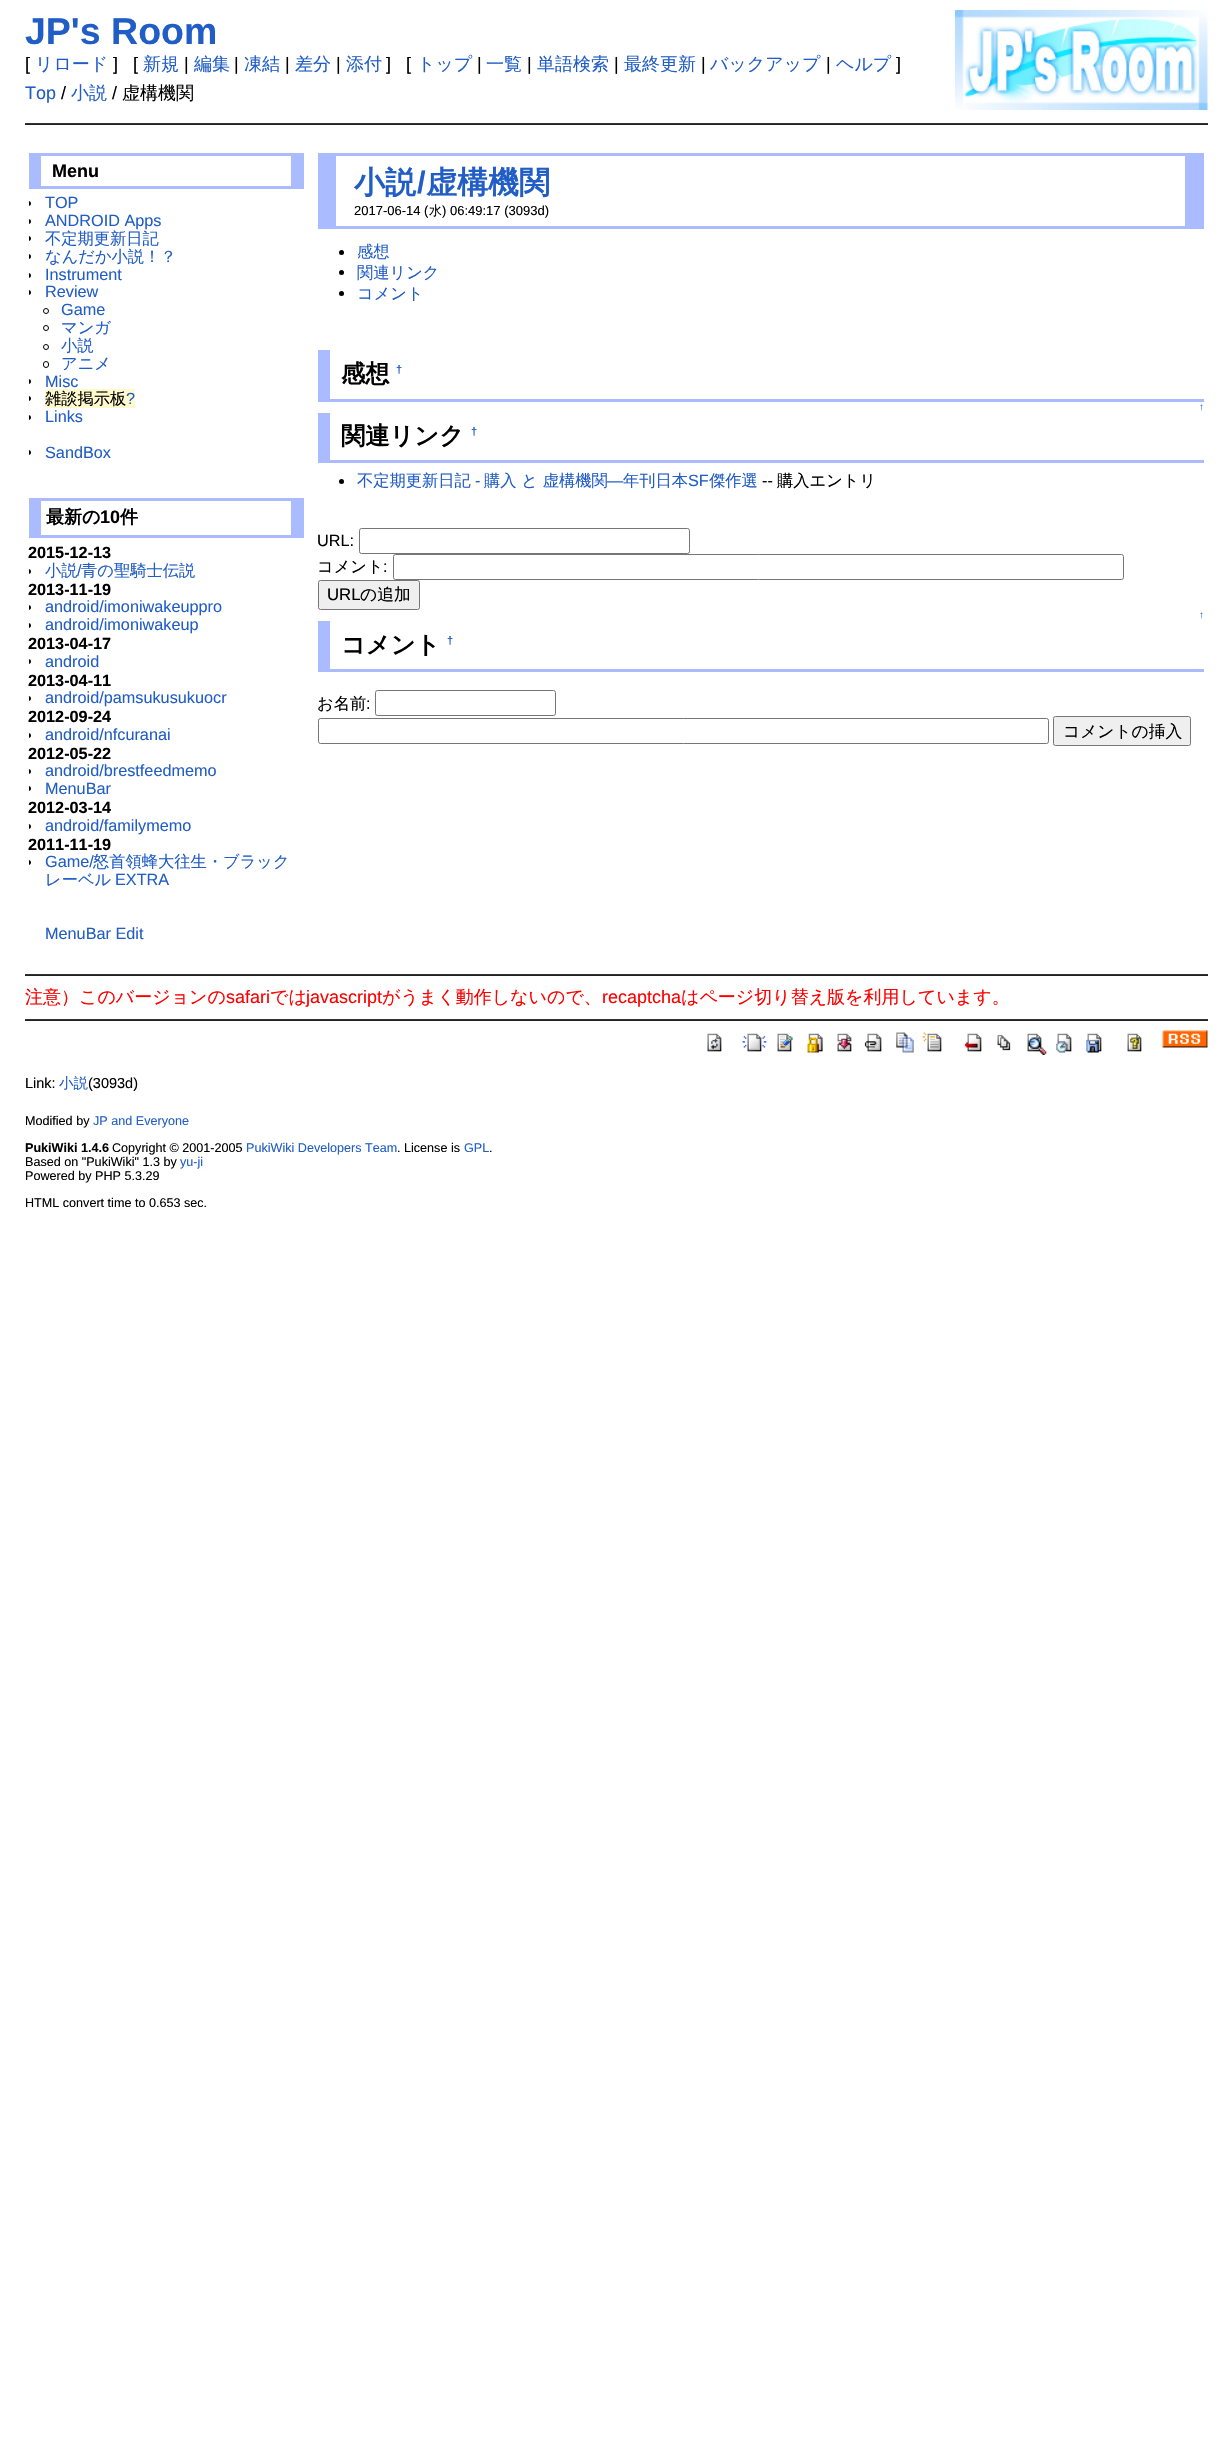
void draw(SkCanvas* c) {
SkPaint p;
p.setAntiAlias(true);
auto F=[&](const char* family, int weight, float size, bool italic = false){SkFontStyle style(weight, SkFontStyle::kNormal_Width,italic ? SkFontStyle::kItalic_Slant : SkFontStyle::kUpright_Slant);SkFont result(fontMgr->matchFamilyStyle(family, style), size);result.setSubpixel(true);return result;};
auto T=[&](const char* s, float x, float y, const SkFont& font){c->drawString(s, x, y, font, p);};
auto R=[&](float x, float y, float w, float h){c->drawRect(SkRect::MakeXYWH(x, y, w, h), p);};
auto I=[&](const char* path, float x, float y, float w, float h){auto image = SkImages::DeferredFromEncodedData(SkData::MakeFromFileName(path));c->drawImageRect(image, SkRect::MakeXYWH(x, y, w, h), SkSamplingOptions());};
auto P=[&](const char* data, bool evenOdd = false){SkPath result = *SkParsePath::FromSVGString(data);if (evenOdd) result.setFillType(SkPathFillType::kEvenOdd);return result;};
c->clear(0xffffffff);
auto f1 = F("Liberation Sans",700,37.5);
p.setColor(0xff215dc6);
T("JP's Room",25,44,f1);
I("1.png",955,10,253,100);
auto f2 = F("Liberation Sans",400,18);
p.setColor(0xff000000);
T("[",25,70,f2);
auto f3 = F("WenQuanYi Zen Hei",500,18);
p.setColor(0xff215dc6);
T("リロード",35,70,f3);
p.setColor(0xff000000);
T("]",113,70,f2);
T("[",133,70,f2);
p.setColor(0xff215dc6);
T("新規",143,70,f3);
p.setColor(0xff000000);
T("|",184,70,f2);
p.setColor(0xff215dc6);
T("編集",194,70,f3);
p.setColor(0xff000000);
T("|",234,70,f2);
p.setColor(0xff215dc6);
T("凍結",244,70,f3);
p.setColor(0xff000000);
T("|",285,70,f2);
p.setColor(0xff215dc6);
T("差分",295,70,f3);
p.setColor(0xff000000);
T("|",336,70,f2);
p.setColor(0xff215dc6);
T("添付",346,70,f3);
p.setColor(0xff000000);
T("]",386,70,f2);
T("[",406,70,f2);
p.setColor(0xff215dc6);
T("トップ",417,70,f3);
p.setColor(0xff000000);
T("|",477,70,f2);
p.setColor(0xff215dc6);
T("一覧",486,70,f3);
p.setColor(0xff000000);
T("|",527,70,f2);
p.setColor(0xff215dc6);
T("単語検索",537,70,f3);
p.setColor(0xff000000);
T("|",614,70,f2);
p.setColor(0xff215dc6);
T("最終更新",624,70,f3);
p.setColor(0xff000000);
T("|",701,70,f2);
p.setColor(0xff215dc6);
T("バックアップ",710,70,f3);
p.setColor(0xff000000);
T("|",826,70,f2);
p.setColor(0xff215dc6);
T("ヘルプ",836,70,f3);
p.setColor(0xff000000);
T("]",896,70,f2);
p.setColor(0xff215dc6);
T("Top",25,99,f2);
p.setColor(0xff000000);
T("/",61,99,f2);
p.setColor(0xff215dc6);
T("小説",71,99,f3);
p.setColor(0xff000000);
T("/",112,99,f2);
T("虚構機関",122,99,f3);
p.setColor(0xff333333);
R(25,123,1183,1);
p.setColor(0xff222222);
R(25,124,1183,1);
p.setColor(0xffaabbff);
R(41,153,250,3);
R(291,153,13,33);
R(41,186,263,3);
R(29,153,12,36);
auto f4 = F("Liberation Sans",700,18);
p.setColor(0xff000000);
T("Menu",52,177,f4);
c->drawPath(P("M29 201h-.5c1.5 0 2.5 1 2.5 2.5c0 1.5-1 2.5-2.5 2.5h.5z"),p);
auto f5 = F("Liberation Sans",400,16.25);
p.setColor(0xff215dc6);
T("TOP",45,208,f5);
p.setColor(0xff000000);
c->drawPath(P("M29 219h-.5c1.5 0 2.5 1 2.5 2.5c0 1.5-1 2.5-2.5 2.5h.5z"),p);
p.setColor(0xff215dc6);
T("ANDROID Apps",45,226,f5);
p.setColor(0xff000000);
c->drawPath(P("M29 236h-.5c1.5 0 2.5 1 2.5 2.5c0 1.5-1 2.5-2.5 2.5h.5z"),p);
auto f6 = F("WenQuanYi Zen Hei",500,16.25);
p.setColor(0xff215dc6);
T("不定期更新日記",45,244,f6);
p.setColor(0xff000000);
c->drawPath(P("M29 254h-.5c1.5 0 2.5 1 2.5 2.5c0 1.5-1 2.5-2.5 2.5h.5z"),p);
p.setColor(0xff215dc6);
T("なんだか小説！？",45,262,f6);
p.setColor(0xff000000);
c->drawPath(P("M29 273h-.5c1.5 0 2.5 1 2.5 2.5c0 1.5-1 2.5-2.5 2.5h.5z"),p);
p.setColor(0xff215dc6);
T("Instrument",45,280,f5);
p.setColor(0xff000000);
c->drawPath(P("M29 290h-.5c1.5 0 2.5 1 2.5 2.5c0 1.5-1 2.5-2.5 2.5h.5z"),p);
p.setColor(0xff215dc6);
T("Review",45,297,f5);
p.setStroke(true);
p.setStrokeWidth(1);
p.setColor(0xff000000);
c->drawCircle(46,311,2.5,p);
p.setStroke(false);
p.setColor(0xff215dc6);
T("Game",61,315,f5);
p.setStroke(true);
p.setColor(0xff000000);
c->drawCircle(46,328,2.5,p);
p.setStroke(false);
p.setColor(0xff215dc6);
T("マンガ",61,333,f6);
p.setStroke(true);
p.setColor(0xff000000);
c->drawCircle(46,347,2.5,p);
p.setStroke(false);
p.setColor(0xff215dc6);
T("小説",61,351,f6);
p.setStroke(true);
p.setColor(0xff000000);
c->drawRoundRect(SkRect::MakeXYWH(43.5,361.5,5,6),2.5,2.5,p);
p.setStroke(false);
p.setColor(0xff215dc6);
T("アニメ",61,369,f6);
p.setColor(0xff000000);
c->drawPath(P("M29 379h-.5c1.5 0 2.5 1 2.5 2.5c0 1.5-1 2.5-2.5 2.5h.5z"),p);
p.setColor(0xff215dc6);
T("Misc",45,387,f5);
p.setColor(0xff000000);
c->drawPath(P("M29 396h-.5c1.5 0 2.5 1 2.5 2.5c0 1.5-1 2.5-2.5 2.5h.5z"),p);
p.setColor(0xfffffacc);
R(45,389,90,19);
p.setColor(0xff000000);
T("雑談掲示板",45,404,f6);
p.setColor(0xff215dc6);
T("?",126,404,f5);
p.setColor(0xff000000);
c->drawPath(P("M29 415h-.5c1.5 0 2.5 1 2.5 2.5c0 1.5-1 2.5-2.5 2.5h.5z"),p);
p.setColor(0xff215dc6);
T("Links",45,422,f5);
p.setColor(0xff000000);
c->drawPath(P("M29 450h-.5c1.5 0 2.5 1 2.5 2.5c0 1.5-1 2.5-2.5 2.5h.5z"),p);
p.setColor(0xff215dc6);
T("SandBox",45,458,f5);
p.setColor(0xffaabbff);
R(41,498,250,3);
R(291,498,13,37);
R(41,535,263,3);
R(29,498,12,40);
auto f7 = F("WenQuanYi Zen Hei",700,18);
p.setColor(0xff000000);
T("最新の",46,523,f7);
T("10",100,523,f4);
T("件",120,523,f7);
auto f8 = F("Liberation Sans",700,16.25);
T("2015-12-13",28,558,f8);
c->drawPath(P("M29 569h-.5c1.5 0 2.5 1 2.5 2.5c0 1.5-1 2.5-2.5 2.5h.5z"),p);
p.setColor(0xff215dc6);
T("小説",45,576,f6);
T("/",77,576,f5);
T("青の聖騎士伝説",81,576,f6);
p.setColor(0xff000000);
T("2013-11-19",28,595,f8);
c->drawPath(P("M29 605h-.5c1.5 0 2.5 1 2.5 2.5c0 1.5-1 2.5-2.5 2.5h.5z"),p);
p.setColor(0xff215dc6);
T("android/imoniwakeuppro",45,612,f5);
p.setColor(0xff000000);
c->drawPath(P("M29 623h-.5c1.5 0 2.5 1 2.5 2.5c0 1.5-1 2.5-2.5 2.5h.5z"),p);
p.setColor(0xff215dc6);
T("android/imoniwakeup",45,630,f5);
p.setColor(0xff000000);
T("2013-04-17",28,649,f8);
c->drawPath(P("M29 659h-.5c1.5 0 2.5 1 2.5 2.5c0 1.5-1 2.5-2.5 2.5h.5z"),p);
p.setColor(0xff215dc6);
T("android",45,667,f5);
p.setColor(0xff000000);
T("2013-04-11",28,686,f8);
c->drawPath(P("M29 696h-.5c1.5 0 2.5 1 2.5 2.5c0 1.5-1 2.5-2.5 2.5h.5z"),p);
p.setColor(0xff215dc6);
T("android/pamsukusukuocr",45,703,f5);
p.setColor(0xff000000);
T("2012-09-24",28,722,f8);
c->drawPath(P("M29 733h-.5c1.5 0 2.5 1 2.5 2.5c0 1.5-1 2.5-2.5 2.5h.5z"),p);
p.setColor(0xff215dc6);
T("android/nfcuranai",45,740,f5);
p.setColor(0xff000000);
T("2012-05-22",28,759,f8);
c->drawPath(P("M29 769h-.5c1.5 0 2.5 1 2.5 2.5c0 1.5-1 2.5-2.5 2.5h.5z"),p);
p.setColor(0xff215dc6);
T("android/brestfeedmemo",45,776,f5);
p.setColor(0xff000000);
c->drawPath(P("M29 786h-.5c1.5 0 2.5 1 2.5 2.5c0 1.5-1 2.5-2.5 2.5h.5z"),p);
p.setColor(0xff215dc6);
T("MenuBar",45,794,f5);
p.setColor(0xff000000);
T("2012-03-14",28,813,f8);
c->drawPath(P("M29 824h-.5c1.5 0 2.5 1 2.5 2.5c0 1.5-1 2.5-2.5 2.5h.5z"),p);
p.setColor(0xff215dc6);
T("android/familymemo",45,831,f5);
p.setColor(0xff000000);
T("2011-11-19",28,850,f8);
c->drawPath(P("M29 860h-.5c1.5 0 2.5 1 2.5 2.5c0 1.5-1 2.5-2.5 2.5h.5z"),p);
p.setColor(0xff215dc6);
T("Game/",45,867,f5);
T("怒首領蜂大往生・ブラック",93,867,f6);
T("レーベル",45,885,f6);
T("EXTRA",115,885,f5);
T("MenuBar Edit",45,939,f5);
p.setColor(0xffaabbff);
R(336,153,849,3);
R(1185,153,19,73);
R(318,153,18,76);
auto f9 = F("WenQuanYi Zen Hei",700,31);
p.setColor(0xff215dc6);
T("小説",354,193,f9);
auto f10 = F("Liberation Sans",700,31);
T("/",417,193,f10);
T("虚構機関",426,193,f9);
p.setColor(0xffaabbff);
R(336,226,868,3);
auto f11 = F("Liberation Sans",400,13);
p.setColor(0xff000000);
T("2017-06-14 (",354,215,f11);
auto f12 = F("WenQuanYi Zen Hei",500,13);
T("水",429,215,f12);
T(") 06:49:17 (3093d)",442,215,f11);
c->drawCircle(341.5,252.5,2.5,p);
p.setColor(0xff215dc6);
T("感想",357,257,f6);
p.setColor(0xff000000);
c->drawCircle(341.5,272.5,2.5,p);
p.setColor(0xff215dc6);
T("関連リンク",357,278,f6);
p.setColor(0xff000000);
c->drawCircle(341.5,293.5,2.5,p);
p.setColor(0xff215dc6);
T("コメント",357,299,f6);
p.setColor(0xffaabbff);
R(318,399,886,3);
R(318,350,12,49);
auto f13 = F("WenQuanYi Zen Hei",700,24.25);
p.setColor(0xff000000);
T("感想",341,382,f13);
auto f14 = F("Liberation Sans",700,11);
p.setColor(0xff215dc6);
T("†",396,373,f14);
auto f15 = F("Liberation Sans",400,10);
T("↑",1199,410,f15);
p.setColor(0xffaabbff);
R(330,460,874,3);
R(318,413,12,50);
p.setColor(0xff000000);
T("関連リンク",341,444,f13);
p.setColor(0xff215dc6);
T("†",471,435,f14);
p.setColor(0xff000000);
c->drawCircle(341.5,481.5,2.5,p);
p.setColor(0xff215dc6);
T("不定期更新日記",357,486,f6);
T("-",475,486,f5);
T("購入 と 虚構機関",484,486,f6);
T("―",607,486,f5);
T("年刊日本",623,486,f6);
T("SF",688,486,f5);
T("傑作選",709,486,f6);
p.setColor(0xff000000);
T("--",762,486,f5);
T("購入エントリ",777,486,f6);
T("URL:",317,546,f5);
p.setStroke(true);
p.setColor(0xff767676);
c->drawRoundRect(SkRect::MakeXYWH(359.5,528.5,330,25),2,2,p);
p.setStroke(false);
p.setColor(0xff000000);
T("コメント",317,572,f6);
T(":",383,572,f5);
p.setStroke(true);
p.setColor(0xff767676);
c->drawRoundRect(SkRect::MakeXYWH(393.5,554.5,730,25),2,2,p);
p.setStroke(false);
p.setColor(0xffefefef);
c->drawRoundRect(SkRect::MakeXYWH(318.5,580.5,101,29),2,2,p);
p.setStroke(true);
p.setColor(0xff767676);
c->drawRoundRect(SkRect::MakeXYWH(318.5,580.5,101,29),2,2,p);
auto f16 = F("Liberation Sans",400,16.75);
p.setStroke(false);
p.setColor(0xff000000);
T("URL",327,600,f16);
auto f17 = F("WenQuanYi Zen Hei",500,16.75);
T("の追加",360,600,f17);
p.setColor(0xff215dc6);
T("↑",1199,618,f15);
p.setColor(0xffaabbff);
R(318,669,886,3);
R(318,621,12,48);
p.setColor(0xff000000);
T("コメント",341,653,f13);
p.setColor(0xff215dc6);
T("†",447,644,f14);
p.setColor(0xff000000);
T("お名前",317,709,f6);
T(":",366,709,f5);
p.setStroke(true);
p.setColor(0xff767676);
c->drawRoundRect(SkRect::MakeXYWH(375.5,690.5,180,25),2,2,p);
c->drawRoundRect(SkRect::MakeXYWH(318.5,718.5,730,25),2,2,p);
p.setStroke(false);
p.setColor(0xffefefef);
c->drawRoundRect(SkRect::MakeXYWH(1053.5,716.5,137,29),2,2,p);
p.setStroke(true);
p.setColor(0xff767676);
c->drawRoundRect(SkRect::MakeXYWH(1053.5,716.5,137,29),2,2,p);
p.setStroke(false);
p.setColor(0xff000000);
T("コメントの挿入",1063,737,f17);
p.setColor(0xff333333);
R(25,974,1183,1);
p.setColor(0xff222222);
R(25,975,1183,1);
p.setColor(0xffff0000);
T("注意）このバージョンの",25,1003,f3);
T("safari",226,1003,f2);
T("では",270,1003,f3);
T("javascript",306,1003,f2);
T("がうまく動作しないので、",382,1003,f3);
T("recaptcha",602,1003,f2);
T("はページ切り替え版を利用しています。",681,1003,f3);
p.setColor(0xff333333);
R(25,1019,1183,1);
p.setColor(0xff222222);
R(25,1020,1183,1);
I("2.png",707,1033,15,19);
I("3.png",742,1033,25,19);
I("4.png",777,1033,16,19);
I("5.png",807,1033,16,20);
I("6.png",837,1033,15,19);
I("7.png",864,1033,18,19);
I("8.png",896,1032,18,21);
I("9.png",922,1032,20,20);
I("10.png",964,1033,18,19);
I("11.png",997,1034,14,17);
I("12.png",1027,1033,20,22);
I("13.png",1056,1033,16,20);
I("14.png",1086,1033,16,20);
I("15.png",1127,1033,15,19);
I("16.png",1162,1030,46,18);
auto f18 = F("Liberation Sans",400,14.5);
p.setColor(0xff000000);
T("Link:",25,1088,f18);
auto f19 = F("WenQuanYi Zen Hei",500,14.5);
p.setColor(0xff215dc6);
T("小説",59,1088,f19);
p.setColor(0xff000000);
T("(3093d)",88,1088,f18);
auto f20 = F("Liberation Sans",400,12.6);
T("Modified by",25,1125,f20);
p.setColor(0xff215dc6);
T("JP and Everyone",93,1125,f20);
auto f21 = F("Liberation Sans",700,12.6);
p.setColor(0xff000000);
T("PukiWiki 1.4.6",25,1152,f21);
T("Copyright © 2001-2005",112,1152,f20);
p.setColor(0xff215dc6);
T("PukiWiki Developers Team",246,1152,f20);
p.setColor(0xff000000);
T(". License is",397,1152,f20);
p.setColor(0xff215dc6);
T("GPL",464,1152,f20);
p.setColor(0xff000000);
T(".",489,1152,f20);
T("Based on \"PukiWiki\" 1.3 by",25,1166,f20);
p.setColor(0xff215dc6);
T("yu-ji",180,1166,f20);
p.setColor(0xff000000);
T("Powered by PHP 5.3.29",25,1180,f20);
T("HTML convert time to 0.653 sec.",25,1207,f20);
}
